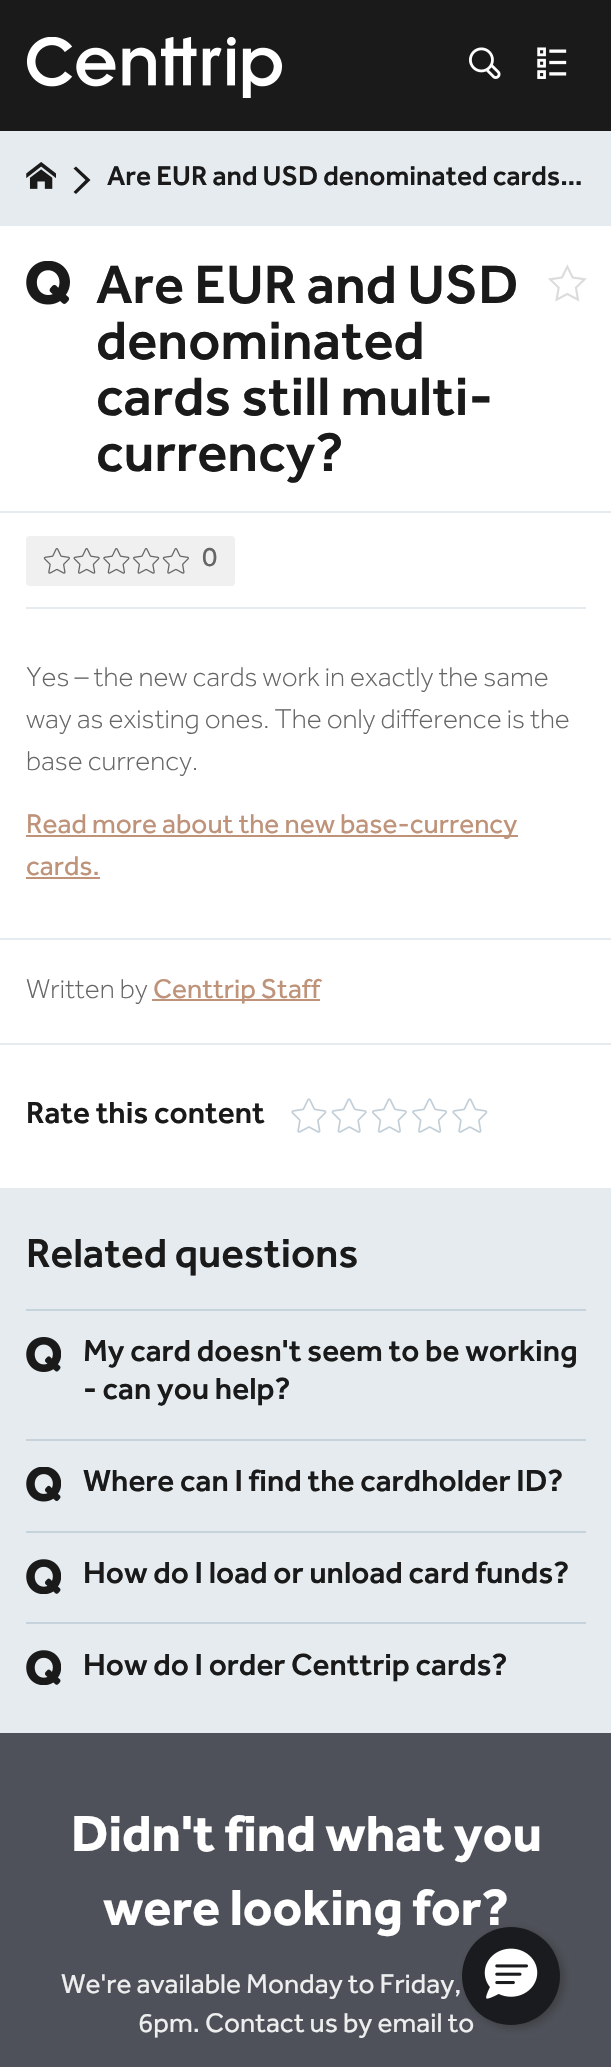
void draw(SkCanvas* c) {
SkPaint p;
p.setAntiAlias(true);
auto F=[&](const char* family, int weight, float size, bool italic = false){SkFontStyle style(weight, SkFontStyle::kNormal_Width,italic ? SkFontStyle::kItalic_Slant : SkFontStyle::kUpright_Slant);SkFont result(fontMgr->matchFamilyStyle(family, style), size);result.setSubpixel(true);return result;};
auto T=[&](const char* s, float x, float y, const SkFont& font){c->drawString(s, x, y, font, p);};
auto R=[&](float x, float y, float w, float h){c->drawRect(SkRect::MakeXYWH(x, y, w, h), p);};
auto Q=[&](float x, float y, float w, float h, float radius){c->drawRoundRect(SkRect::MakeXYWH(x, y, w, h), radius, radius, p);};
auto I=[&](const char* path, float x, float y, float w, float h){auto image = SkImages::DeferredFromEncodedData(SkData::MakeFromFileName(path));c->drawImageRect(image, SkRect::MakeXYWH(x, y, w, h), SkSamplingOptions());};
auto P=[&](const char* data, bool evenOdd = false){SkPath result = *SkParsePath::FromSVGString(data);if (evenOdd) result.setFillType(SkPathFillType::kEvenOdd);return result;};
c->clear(0xffffffff);
p.setColor(0xff1a1a1a);
R(0,0,611,131);
I("1.png",26,37,257,61);
I("2.png",469,47,32,32);
I("3.png",537,47,30,32);
p.setColor(0xffe5ebee);
R(0,131,611,95);
I("4.png",26,162,30,27);
p.setColor(0xff1a1a1a);
c->drawPath(P("M73.5 168.5l12 11.5l-12 12l2.5 2l14.5-14l-14.5-13.5z"),p);
auto f1 = F("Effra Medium",500,28);
T("Are EUR and USD denominated cards…",107,185,f1);
I("5.png",26,261,44,44);
auto f2 = F("Effra Medium",500,56);
T("Are EUR and USD",96,303,f2);
T("denominated",96,359,f2);
T("cards still multi-",96,415,f2);
T("currency?",96,471,f2);
I("6.png",548,264,39,38);
p.setColor(0xffe5ebee);
R(0,511,611,2);
p.setColor(0xfff0f0f0);
Q(26,536,209,50,4);
I("7.png",43,548,27,26);
I("8.png",73,548,27,26);
I("9.png",103,548,27,26);
I("10.png",133,548,27,26);
I("7.png",162,548,27,26);
auto f3 = F("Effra",400,28);
p.setColor(0xff666666);
T("0",202,566,f3);
p.setColor(0xffe5ebee);
R(26,607,560,2);
auto f4 = F("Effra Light",300,28);
p.setColor(0xff666666);
T("Yes – the new cards work in exactly the same",26,686,f4);
T("way as existing ones. The only difference is the",26,728,f4);
T("base currency.",26,770,f4);
p.setColor(0xffbe9379);
R(26,835,492,2);
T("Read more about the new base-currency",26,833,f3);
T("cards.",26,875,f3);
R(26,877,74,2);
p.setColor(0xffe5ebee);
R(0,938,611,2);
p.setColor(0xff666666);
T("Written by",26,998,f4);
p.setColor(0xffbe9379);
R(152,999,168,2);
T("Centtrip Staff",153,998,f3);
p.setColor(0xffe5ebee);
R(0,1043,611,2);
auto f5 = F("Effra Medium",500,31.5);
p.setColor(0xff1a1a1a);
T("Rate this content",26,1123,f5);
I("11.png",291,1098,36,35);
I("12.png",331,1098,36,35);
I("13.png",372,1098,35,35);
I("14.png",412,1098,35,35);
I("11.png",452,1098,36,35);
p.setColor(0xffe5ebee);
R(0,1188,611,545);
auto f6 = F("Effra Medium",500,42);
p.setColor(0xff1a1a1a);
T("Related questions",26,1267,f6);
p.setColor(0xffc6d3da);
R(26,1309,560,2);
I("15.png",26,1337,35,35);
p.setColor(0xff1a1a1a);
T("My card doesn't seem to be working",83,1361,f5);
T("- can you help?",83,1399,f5);
p.setColor(0xffc6d3da);
R(26,1439,560,2);
I("16.png",26,1467,35,35);
p.setColor(0xff1a1a1a);
T("Where can I find the cardholder ID?",83,1491,f5);
p.setColor(0xffc6d3da);
R(26,1531,560,2);
I("17.png",26,1559,35,35);
p.setColor(0xff1a1a1a);
T("How do I load or unload card funds?",83,1583,f5);
p.setColor(0xffc6d3da);
R(26,1622,560,2);
I("17.png",26,1650,35,35);
p.setColor(0xff1a1a1a);
T("How do I order Centtrip cards?",83,1675,f5);
p.setColor(0xff4e5159);
R(0,1733,611,334);
auto f7 = F("Effra",700,52.5);
p.setColor(0xffffffff);
T("Didn't find what you",71,1851,f7);
T("were looking for?",103,1925,f7);
p.setColor(0xffedeeee);
T("We're available Monday to Friday,",61,1993,f3);
T("6pm. Contact us by email to",138,2032,f3);
p.setColor(0x802d2d2d);
p.setMaskFilter(SkMaskFilter::MakeBlur(kNormal_SkBlurStyle, 4.5));
c->drawRoundRect(SkRect::MakeXYWH(466,1930,98,98),49,49,p);
p.setMaskFilter(nullptr);
p.setColor(0xff1a1b1e);
c->drawCircle(511,1976,49,p);
I("18.png",484,1948,54,51);
}
